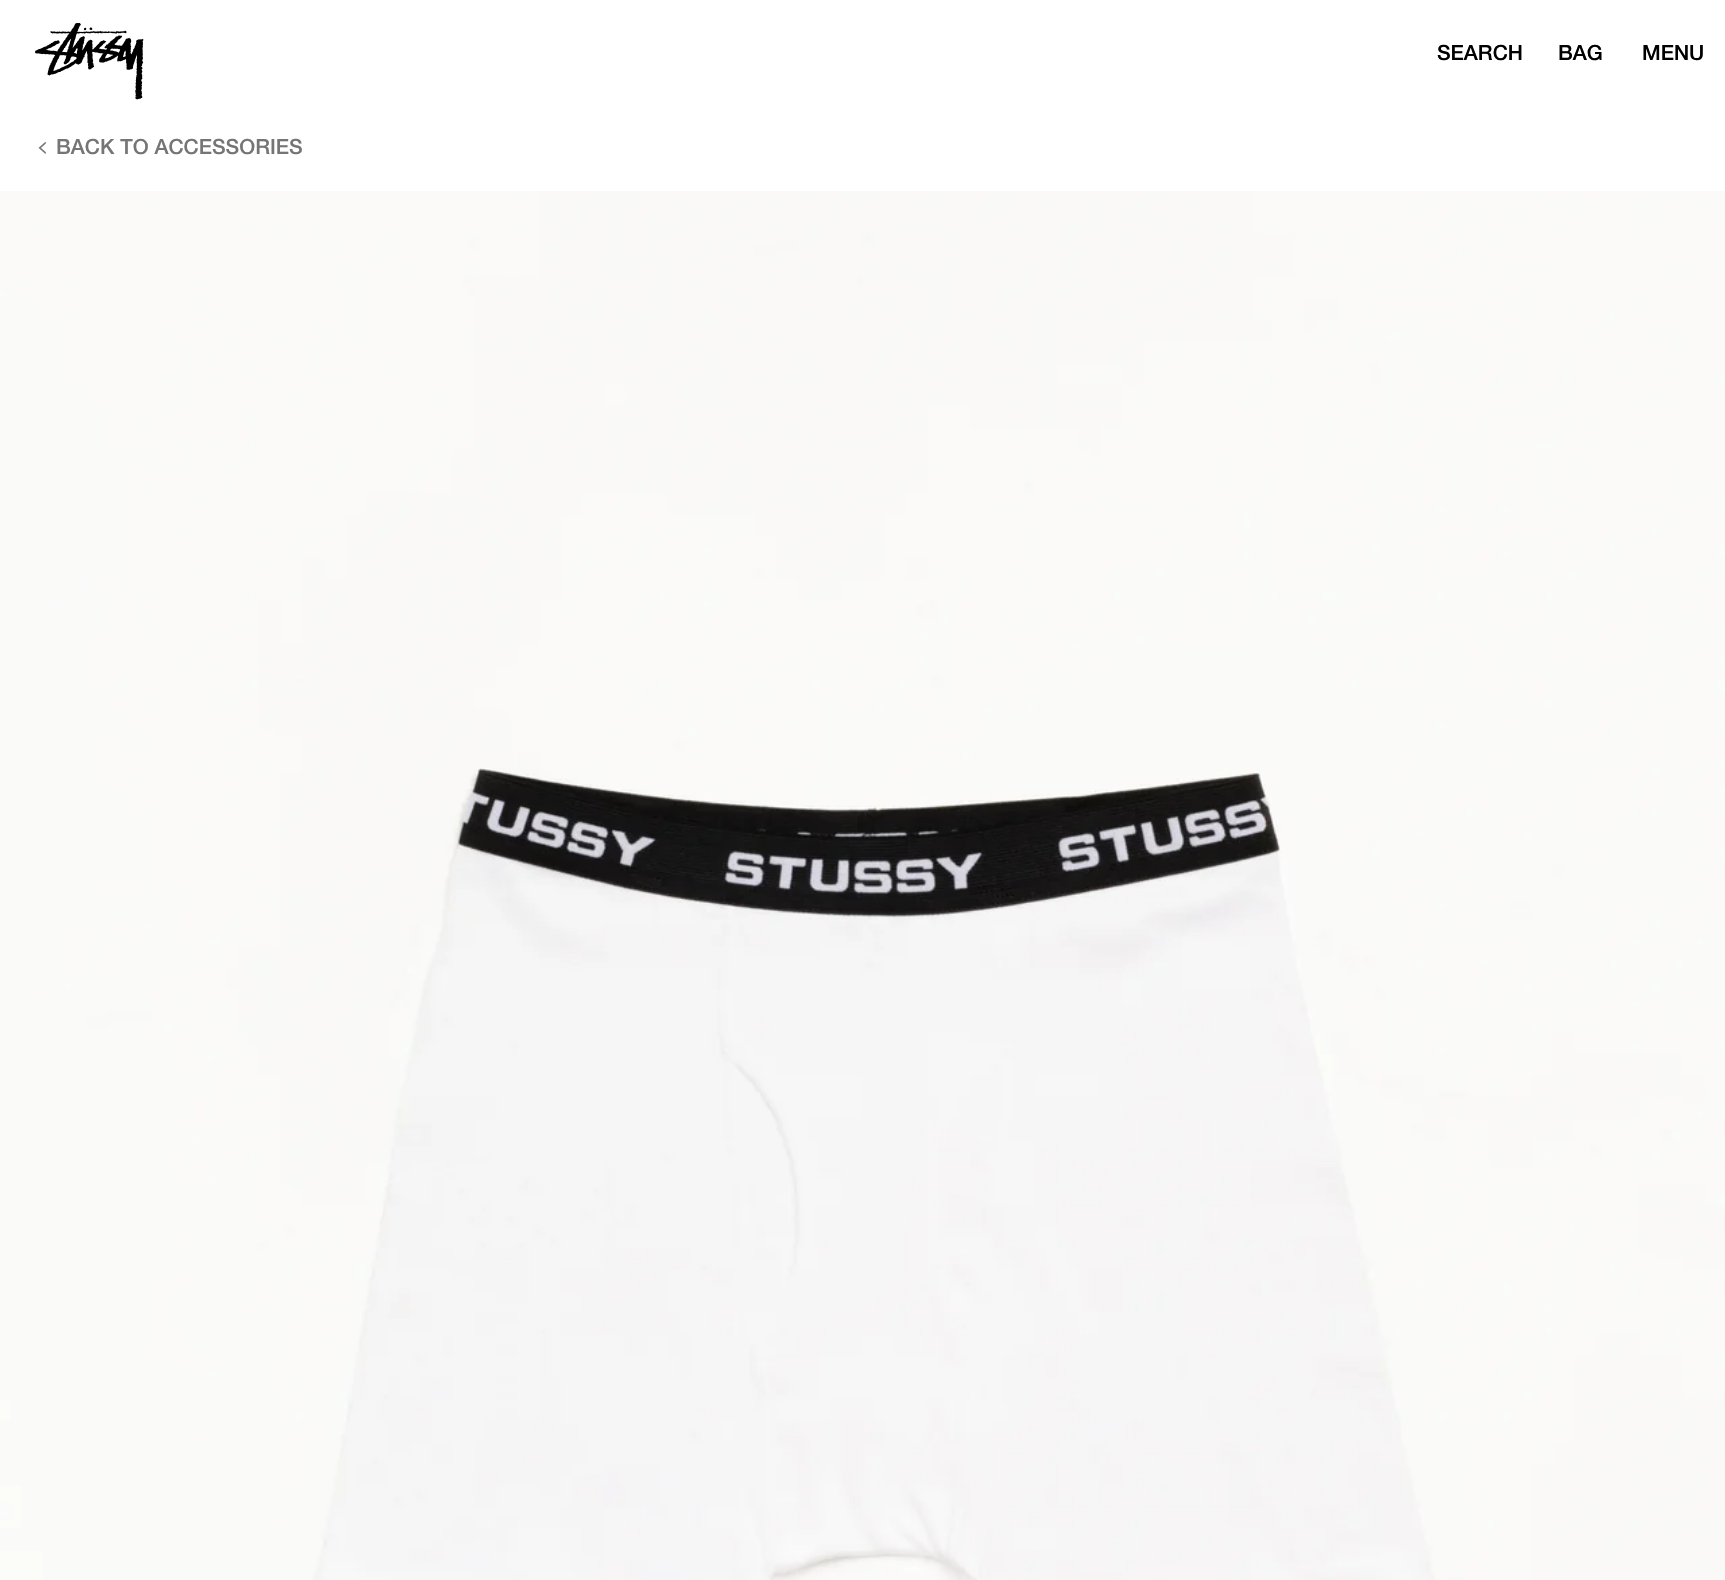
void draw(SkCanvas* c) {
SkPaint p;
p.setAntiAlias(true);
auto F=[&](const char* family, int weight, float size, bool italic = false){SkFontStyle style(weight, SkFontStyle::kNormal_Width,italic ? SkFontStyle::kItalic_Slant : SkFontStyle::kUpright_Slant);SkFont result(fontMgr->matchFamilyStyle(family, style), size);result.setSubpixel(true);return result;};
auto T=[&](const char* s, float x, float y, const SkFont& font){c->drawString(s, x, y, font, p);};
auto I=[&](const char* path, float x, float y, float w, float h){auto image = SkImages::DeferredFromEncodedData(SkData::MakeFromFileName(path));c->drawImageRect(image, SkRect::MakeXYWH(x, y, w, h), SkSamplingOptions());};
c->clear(0xffffffff);
I("1.png",35,23,109,77);
auto f1 = F("Helvetica Neue",500,21);
p.setColor(0xff000000);
T("SEARCH",1437,60,f1);
T("BAG",1558,60,f1);
T("MENU",1642,60,f1);
I("2.png",38,142,8,12);
p.setColor(0xff757575);
T("BACK TO ACCESSORIES",56,154,f1);
I("3.png",0,191,1725,1389);
}
